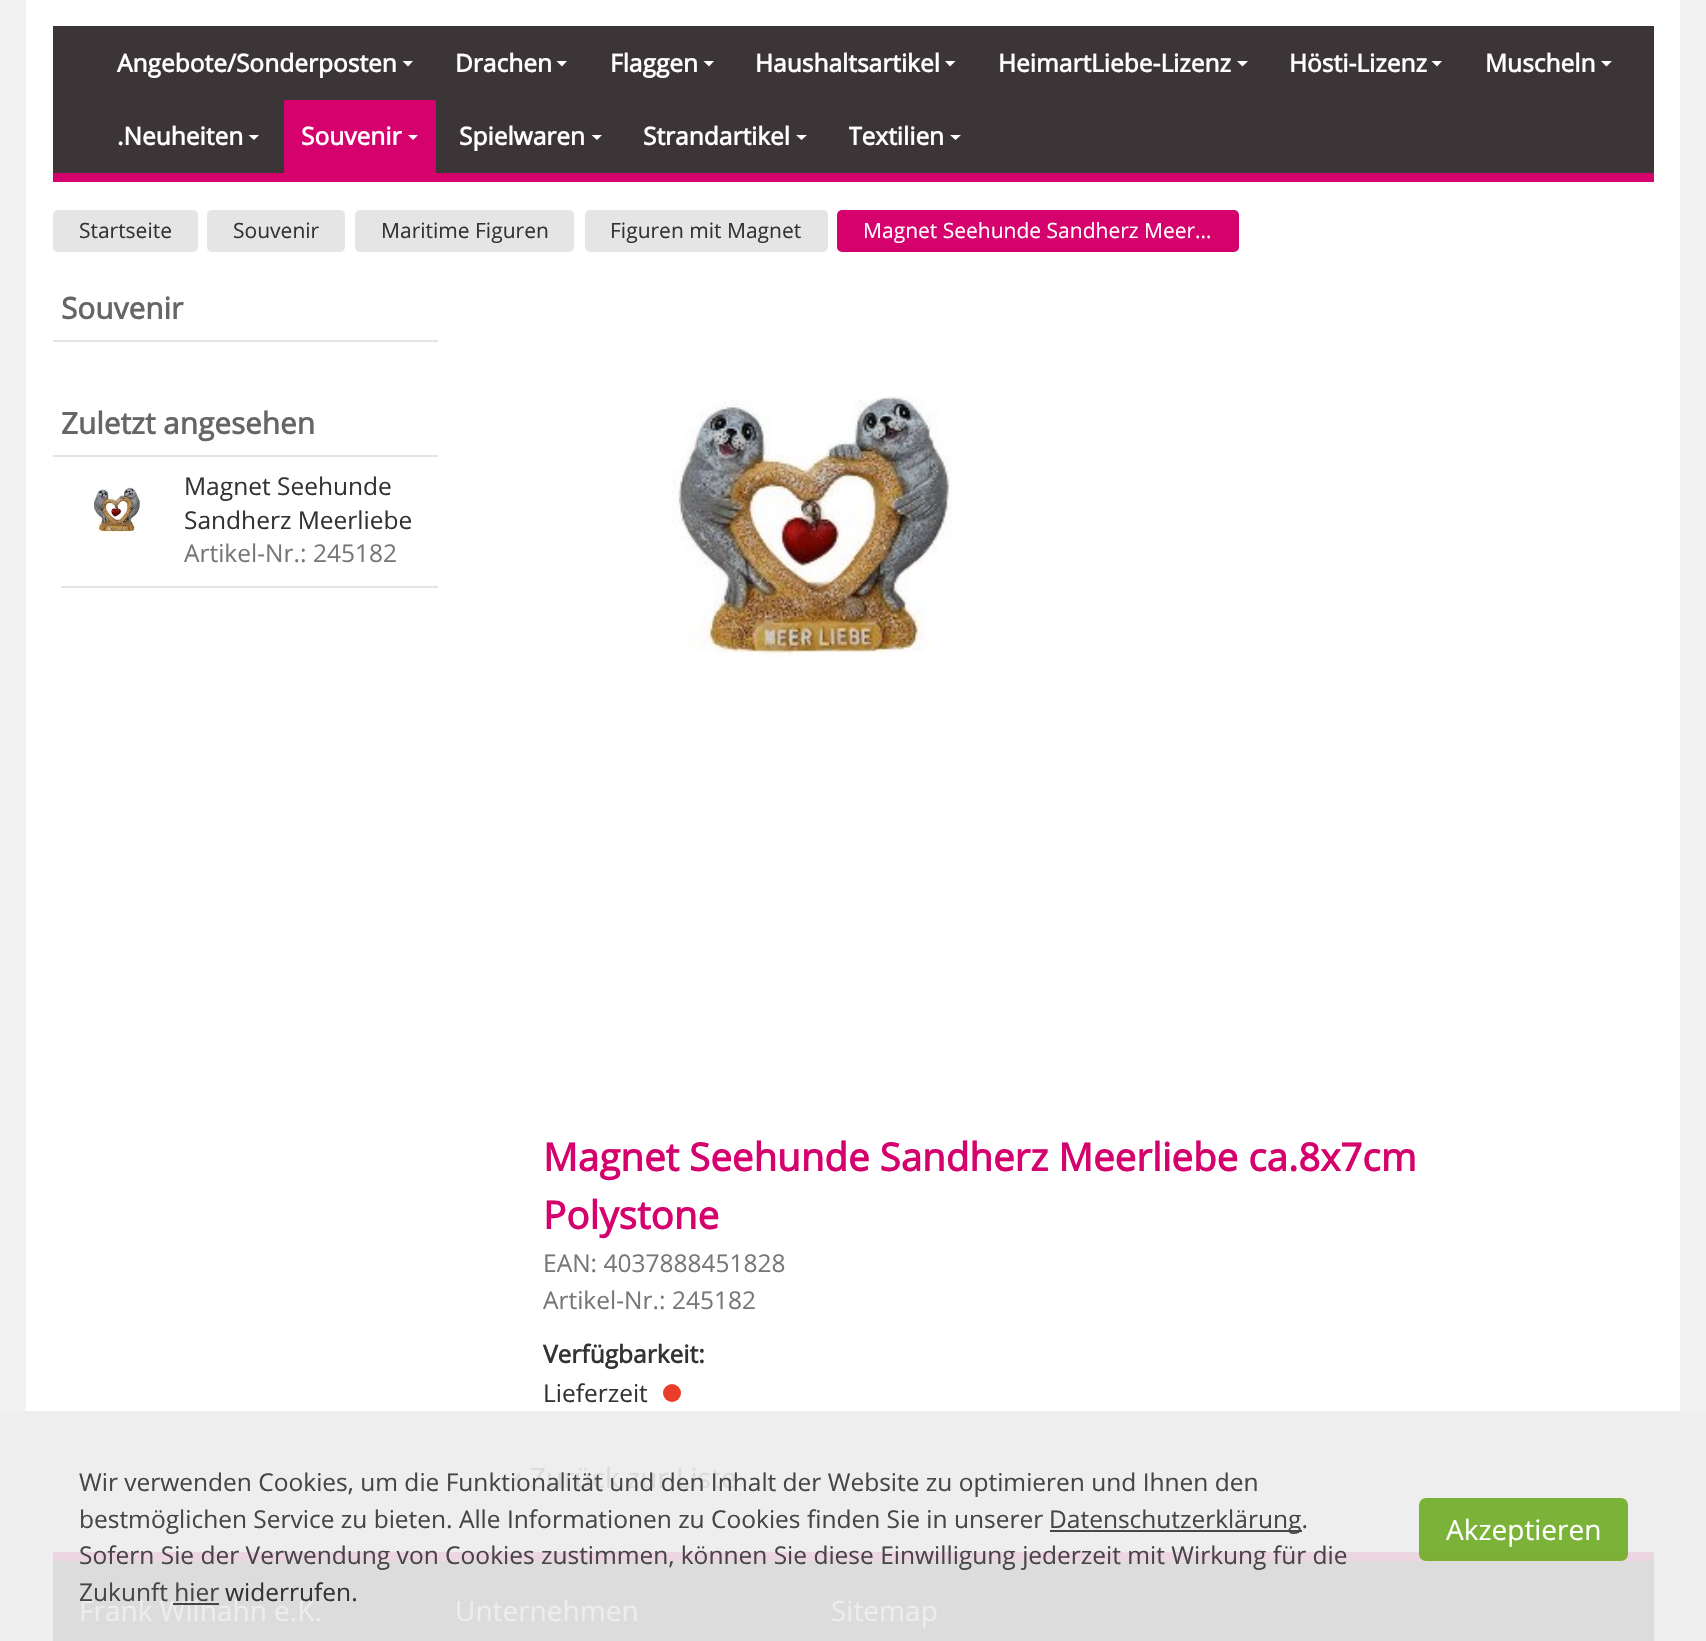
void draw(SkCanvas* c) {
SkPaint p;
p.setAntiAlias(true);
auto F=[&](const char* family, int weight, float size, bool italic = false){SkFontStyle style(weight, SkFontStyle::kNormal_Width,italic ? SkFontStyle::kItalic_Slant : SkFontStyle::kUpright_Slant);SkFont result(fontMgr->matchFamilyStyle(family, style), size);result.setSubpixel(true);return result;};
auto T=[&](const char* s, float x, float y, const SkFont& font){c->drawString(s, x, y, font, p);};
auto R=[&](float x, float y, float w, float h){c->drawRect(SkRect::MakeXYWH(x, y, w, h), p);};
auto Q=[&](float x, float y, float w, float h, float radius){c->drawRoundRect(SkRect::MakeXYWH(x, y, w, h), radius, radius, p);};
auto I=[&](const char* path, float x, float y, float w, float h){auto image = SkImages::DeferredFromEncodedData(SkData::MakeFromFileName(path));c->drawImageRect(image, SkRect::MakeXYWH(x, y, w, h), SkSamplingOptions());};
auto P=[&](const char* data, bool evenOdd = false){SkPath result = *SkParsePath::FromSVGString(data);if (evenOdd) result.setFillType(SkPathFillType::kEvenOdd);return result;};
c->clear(0xfff2f2f2);
p.setColor(0xffeeeeee);
R(0,1411,1706,230);
p.setColor(0xffffffff);
R(26,0,1654,1411);
p.setColor(0xff3b3537);
R(53,26,1601,147);
p.setColor(0xffd5026e);
R(53,173,1601,9);
auto f1 = F("Open Sans",700,24.5);
p.setColor(0xffffffff);
T("Angebote/Sonderposten",117,72,f1);
c->drawPath(P("M402.5 61h10.5l-5 5.5z"),p);
T("Drachen",455,72,f1);
c->drawPath(P("M556.5 61h10.5l-5 5.5z"),p);
T("Flaggen",610,72,f1);
c->drawPath(P("M703.5 61h10.5l-5 5.5z"),p);
T("Haushaltsartikel",755,72,f1);
c->drawPath(P("M945 61h10.5l-5.5 5.5z"),p);
T("HeimartLiebe-Lizenz",998,72,f1);
c->drawPath(P("M1237 61h11l-5.5 5.5z"),p);
T("Hösti-Lizenz",1289,72,f1);
c->drawPath(P("M1431.5 61h10.5l-5 5.5z"),p);
T("Muscheln",1485,72,f1);
c->drawPath(P("M1601 61h11l-5.5 5.5z"),p);
T(".Neuheiten",117,145,f1);
c->drawPath(P("M248.5 135h10.5l-5 5z"),p);
p.setColor(0xffd5026e);
R(284,100,152,73);
p.setColor(0xffffffff);
T("Souvenir",301,145,f1);
c->drawPath(P("M408 135h10l-5 5z"),p);
T("Spielwaren",459,145,f1);
c->drawPath(P("M591.5 135h10.5l-5 5z"),p);
T("Strandartikel",643,145,f1);
c->drawPath(P("M796 135h11l-5.5 5z"),p);
c->save();
c->clipRect(SkRect::MakeXYWH(849,100,96,73));
T("Textilien",848,145,f1);
c->restore();
c->drawPath(P("M950 135h11l-5.5 5z"),p);
p.setColor(0xffe5e5e5);
Q(53,210,145,42,5);
auto f2 = F("Open Sans",400,21);
p.setColor(0xff333333);
T("Startseite",79,238,f2);
p.setColor(0xffe5e5e5);
Q(207,210,138,42,5);
p.setColor(0xff333333);
T("Souvenir",233,238,f2);
p.setColor(0xffe5e5e5);
Q(355,210,219,42,5);
p.setColor(0xff333333);
T("Maritime Figuren",381,238,f2);
p.setColor(0xffe5e5e5);
Q(585,210,243,42,5);
p.setColor(0xff333333);
T("Figuren mit Magnet",610,238,f2);
p.setColor(0xffd5026e);
Q(837,210,402,42,5);
p.setColor(0xffffffff);
T("Magnet Seehunde Sandherz Meer…",863,238,f2);
p.setColor(0xffe5e5e5);
R(53,340,385,2);
auto f3 = F("Open Sans",700,29.75);
p.setColor(0xff666666);
T("Souvenir",61,319,f3);
p.setColor(0xffe5e5e5);
R(53,455,385,2);
p.setColor(0xff666666);
T("Zuletzt angesehen",61,434,f3);
p.setColor(0xffe5e5e5);
R(61,586,377,2);
I("1.png",93,486,48,50);
auto f4 = F("Open Sans",400,24.5);
p.setColor(0xff333333);
T("Magnet Seehunde",184,495,f4);
T("Sandherz Meerliebe",184,529,f4);
p.setColor(0xff777777);
T("Artikel-Nr.: 245182",184,562,f4);
I("2.png",672,396,280,262);
auto f5 = F("Open Sans",700,38.5);
p.setColor(0xffd5026e);
T("Magnet Seehunde Sandherz Meerliebe ca.8x7cm",543,1171,f5);
T("Polystone",543,1229,f5);
p.setColor(0xff777777);
T("EAN: 4037888451828",543,1272,f4);
T("Artikel-Nr.: 245182",543,1309,f4);
p.setColor(0xff333333);
T("Verfügbarkeit:",543,1363,f1);
T("Lieferzeit",543,1402,f4);
p.setColor(0xffe93c2b);
c->drawCircle(672,1393,9,p);
p.setColor(0xffdfdfdf);
c->drawPath(P("M520 1472v14l-7-7z"),p);
auto f6 = F("Open Sans",400,28);
p.setColor(0xffdbdbdb);
T("Zurück zur Liste",530,1488,f6);
p.setColor(0xffdcdcdc);
R(53,1561,1601,80);
p.setColor(0xffecd6e1);
R(53,1552,1601,9);
p.setColor(0xffededed);
T("Frank Wilhahn e.K.",79,1621,f6);
T("Unternehmen",455,1621,f6);
T("Sitemap",831,1621,f6);
p.setColor(0xff464646);
T("Wir verwenden Cookies, um die Funktionalität und den Inhalt der Website zu optimieren und Ihnen den",79,1491,f4);
T("bestmöglichen Service zu bieten. Alle Informationen zu Cookies finden Sie in unserer",79,1528,f4);
p.setColor(0xff474747);
R(1050,1530,252,2);
p.setColor(0xff464646);
T("Datenschutzerklärung.",1049,1528,f4);
T("Sofern Sie der Verwendung von Cookies zustimmen, können Sie diese Einwilligung jederzeit mit Wirkung für die",79,1564,f4);
T("Zukunft hier",79,1601,f4);
p.setColor(0xe6333333);
R(173,1603,46,2);
p.setColor(0xff333333);
T("widerrufen.",225,1601,f4);
p.setColor(0xe66eab24);
Q(1419,1498,209,63,7);
p.setColor(0xffffffff);
T("Akzeptieren",1446,1540,f6);
}
